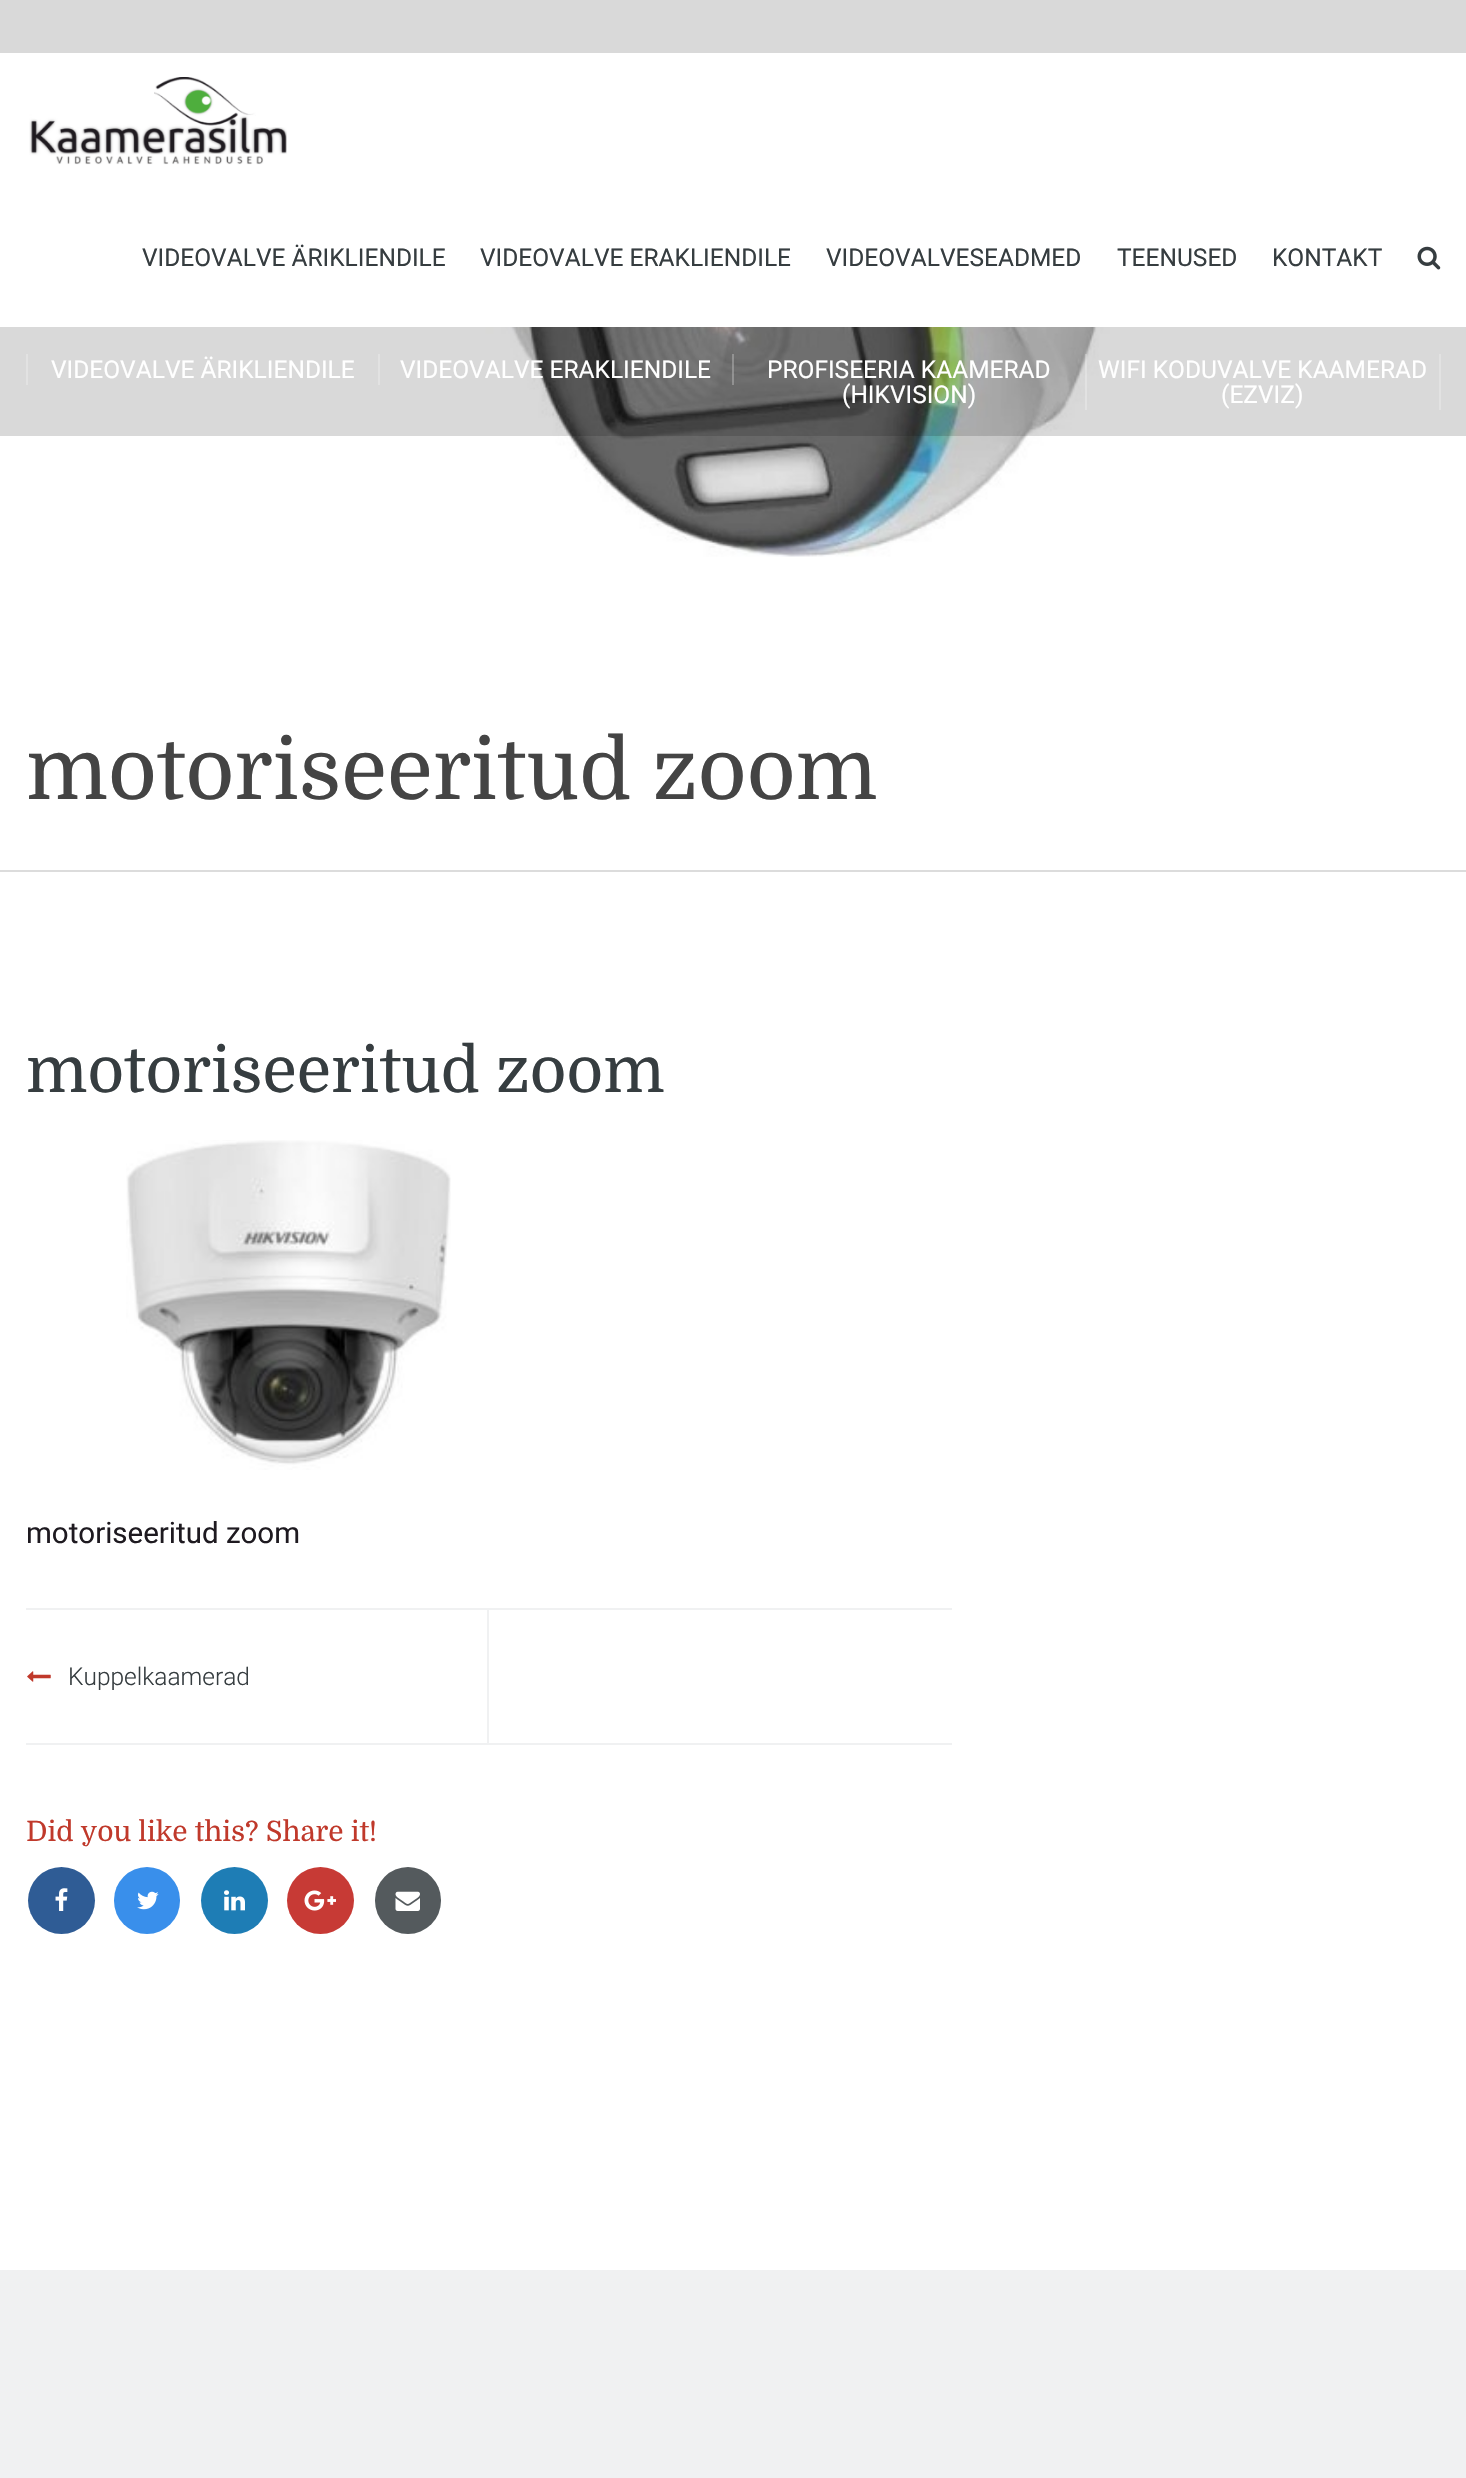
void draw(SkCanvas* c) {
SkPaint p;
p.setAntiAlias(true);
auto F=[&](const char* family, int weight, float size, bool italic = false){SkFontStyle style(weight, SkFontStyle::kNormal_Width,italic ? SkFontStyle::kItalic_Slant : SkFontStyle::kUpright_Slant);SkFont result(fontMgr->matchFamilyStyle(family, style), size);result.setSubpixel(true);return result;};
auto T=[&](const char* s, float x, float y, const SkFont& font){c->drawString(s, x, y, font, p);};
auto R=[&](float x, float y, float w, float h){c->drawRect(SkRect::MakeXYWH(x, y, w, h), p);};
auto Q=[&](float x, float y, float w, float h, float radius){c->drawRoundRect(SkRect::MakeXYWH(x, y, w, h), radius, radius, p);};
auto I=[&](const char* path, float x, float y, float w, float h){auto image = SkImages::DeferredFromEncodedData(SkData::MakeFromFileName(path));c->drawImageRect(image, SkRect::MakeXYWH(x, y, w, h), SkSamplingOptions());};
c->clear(0xffffffff);
I("1.png",483,327,642,230);
p.setColor(0xffdcdcdc);
R(0,870,1466,2);
p.setColor(0x26000000);
R(0,0,1466,436);
p.setColor(0xffffffff);
R(0,53,1466,274);
I("2.png",29,77,258,88);
auto f1 = F("Roboto",400,24.5);
p.setColor(0xff363d40);
T("VIDEOVALVE ÄRIKLIENDILE",142,266,f1);
T("VIDEOVALVE ERAKLIENDILE",480,266,f1);
T("VIDEOVALVESEADMED",826,266,f1);
T("TEENUSED",1117,266,f1);
T("KONTAKT",1272,266,f1);
I("3.png",1417,246,24,24);
p.setColor(0xffe2e2e2);
R(378,354,2,31);
R(26,354,2,31);
p.setColor(0xffffffff);
T("VIDEOVALVE ÄRIKLIENDILE",51,378,f1);
p.setColor(0x40ffffff);
R(732,354,2,31);
p.setColor(0xffffffff);
T("VIDEOVALVE ERAKLIENDILE",400,378,f1);
p.setColor(0x40ffffff);
R(1085,354,2,56);
p.setColor(0xffffffff);
T("PROFISEERIA KAAMERAD",767,378,f1);
T("(HIKVISION)",842,403,f1);
p.setColor(0xffe2e2e2);
R(1439,354,2,56);
p.setColor(0xffffffff);
T("WIFI KODUVALVE KAAMERAD",1098,378,f1);
T("(EZVIZ)",1221,403,f1);
auto f2 = F("Domine",400,84);
p.setColor(0xff444444);
T("motoriseeritud zoom",26,799,f2);
auto f3 = F("Domine",400,63);
p.setColor(0xff363d40);
T("motoriseeritud zoom",26,1092,f3);
I("4.png",126,1140,325,330);
auto f4 = F("Roboto",400,29.5);
p.setColor(0xff1e1a20);
T("motoriseeritud zoom",26,1543,f4);
p.setColor(0xfff0f1f2);
R(26,1608,926,2);
R(26,1743,926,2);
R(487,1610,2,133);
I("5.png",27,1671,24,11);
auto f5 = F("Roboto",300,24.5);
p.setColor(0xff363d40);
T("Kuppelkaamerad",68,1685,f5);
auto f6 = F("Domine",400,28);
p.setColor(0xffc0392b);
T("Did you like this? Share it!",26,1841,f6);
p.setColor(0xff2f5c95);
c->drawCircle(61.5,1900.5,33.5,p);
I("6.png",55,1888,13,23);
p.setColor(0xff398feb);
Q(114,1867,66,67,33);
I("7.png",137,1891,22,19);
p.setColor(0xff1e7db5);
c->drawCircle(234.5,1900.5,33.5,p);
I("8.png",224,1890,21,21);
p.setColor(0xffc73a35);
c->drawCircle(320.5,1900.5,33.5,p);
I("9.png",304,1890,32,21);
p.setColor(0xff545a5d);
Q(375,1867,66,67,33);
I("10.png",395,1891,25,20);
p.setColor(0xfff0f1f2);
R(0,2270,1466,208);
}
